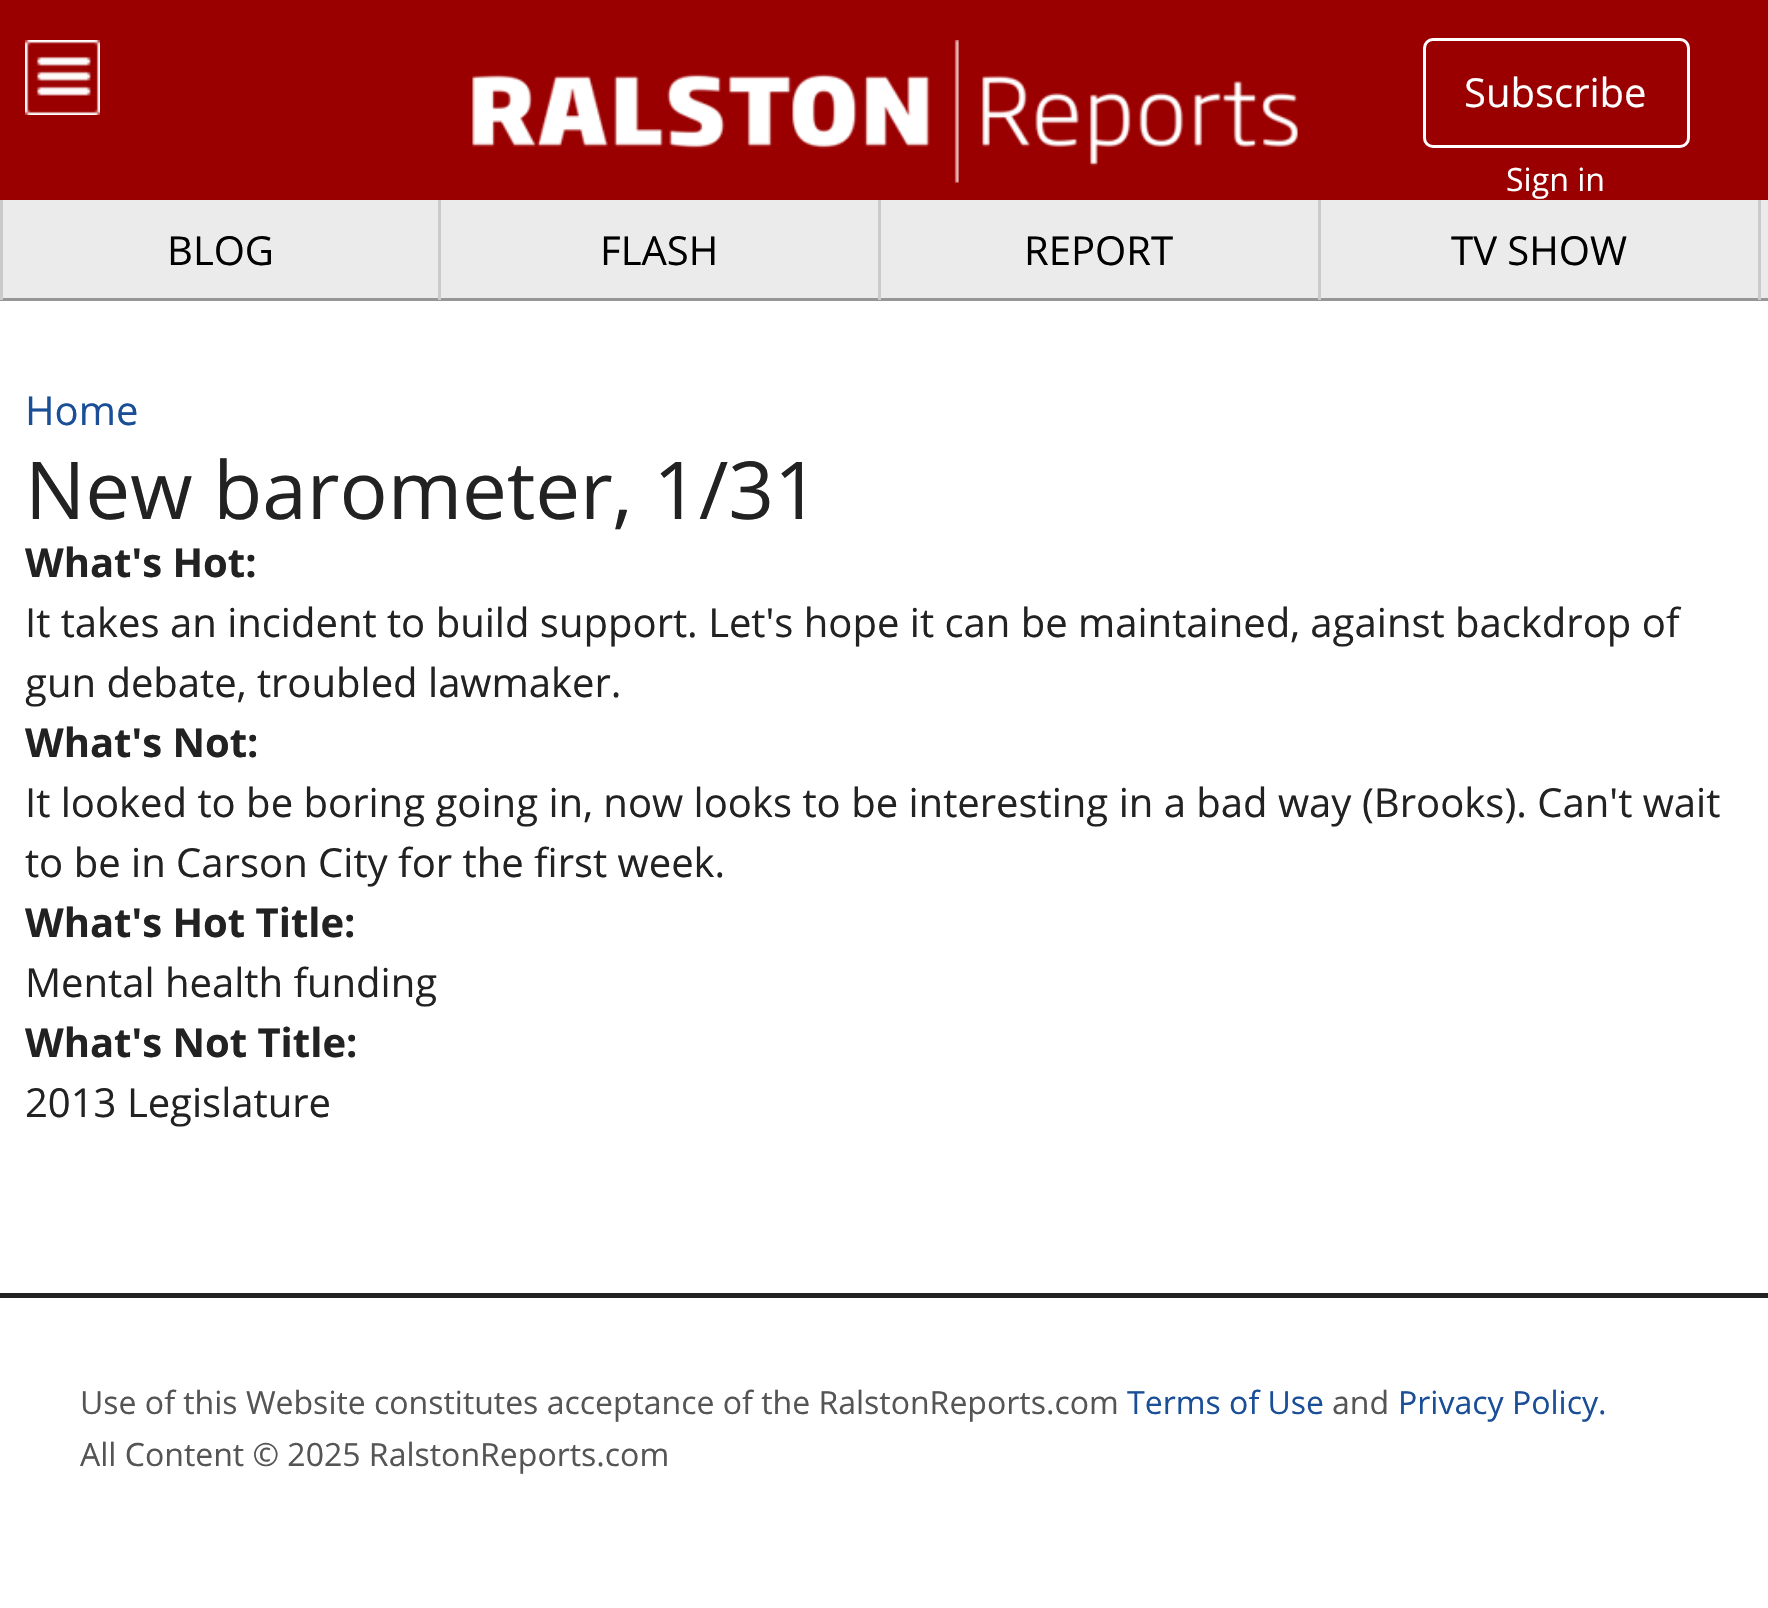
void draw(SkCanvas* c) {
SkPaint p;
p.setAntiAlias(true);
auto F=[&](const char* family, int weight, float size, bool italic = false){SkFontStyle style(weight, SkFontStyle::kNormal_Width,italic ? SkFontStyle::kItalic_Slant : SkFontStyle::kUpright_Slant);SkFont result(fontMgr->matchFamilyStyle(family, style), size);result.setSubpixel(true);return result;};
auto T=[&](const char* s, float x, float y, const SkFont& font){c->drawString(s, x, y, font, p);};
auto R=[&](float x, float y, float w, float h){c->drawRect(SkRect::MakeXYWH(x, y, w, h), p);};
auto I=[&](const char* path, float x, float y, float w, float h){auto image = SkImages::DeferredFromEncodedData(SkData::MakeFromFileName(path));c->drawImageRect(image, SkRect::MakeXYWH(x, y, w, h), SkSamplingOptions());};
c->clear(0xffffffff);
p.setColor(0xff9b0000);
R(0,0,1768,200);
I("1.png",25,40,75,75);
I("2.png",472,40,826,143);
p.setStroke(true);
p.setStrokeWidth(3);
p.setColor(0xffffffff);
c->drawRoundRect(SkRect::MakeXYWH(1424.5,39.5,264,107),8.5,8.5,p);
auto f1 = F("Open Sans",400,40);
p.setStroke(false);
T("Subscribe",1464,107,f1);
auto f2 = F("Open Sans",400,32);
T("Sign in",1506,191,f2);
p.setColor(0xff222222);
R(0,1293,1768,5);
p.setColor(0xffebebeb);
R(3,200,1765,98);
p.setColor(0xff969696);
R(0,298,1768,3);
p.setColor(0xffcacaca);
R(438,200,3,100);
R(0,200,3,100);
p.setColor(0xff000000);
T("BLOG",167,265,f1);
p.setColor(0xffcacaca);
R(878,200,3,100);
p.setColor(0xff000000);
T("FLASH",600,265,f1);
p.setColor(0xffcacaca);
R(1318,200,3,100);
p.setColor(0xff000000);
T("REPORT",1024,265,f1);
p.setColor(0xffcacaca);
R(1758,200,3,100);
p.setColor(0xff000000);
T("TV SHOW",1451,265,f1);
p.setColor(0xff1a4f97);
T("Home",25,425,f1);
auto f3 = F("Open Sans",400,80);
p.setColor(0xff222222);
T("New barometer, 1/31",25,519,f3);
auto f4 = F("Open Sans",700,40);
T("What's Hot:",25,577,f4);
T("It takes an incident to build support. Let's hope it can be maintained, against backdrop of",25,637,f1);
T("gun debate, troubled lawmaker.",25,697,f1);
T("What's Not:",25,757,f4);
T("It looked to be boring going in, now looks to be interesting in a bad way (Brooks). Can't wait",25,817,f1);
T("to be in Carson City for the first week.",25,877,f1);
T("What's Hot Title:",25,937,f4);
T("Mental health funding",25,997,f1);
T("What's Not Title:",25,1057,f4);
T("2013 Legislature",25,1117,f1);
p.setColor(0xff555555);
T("Use of this Website constitutes acceptance of the RalstonReports.com",80,1414,f2);
p.setColor(0xff1a4f97);
T("Terms of Use",1127,1414,f2);
p.setColor(0xff555555);
T("and",1332,1414,f2);
p.setColor(0xff1a4f97);
T("Privacy Policy.",1398,1414,f2);
p.setColor(0xff555555);
T("All Content © 2025 RalstonReports.com",80,1466,f2);
}
